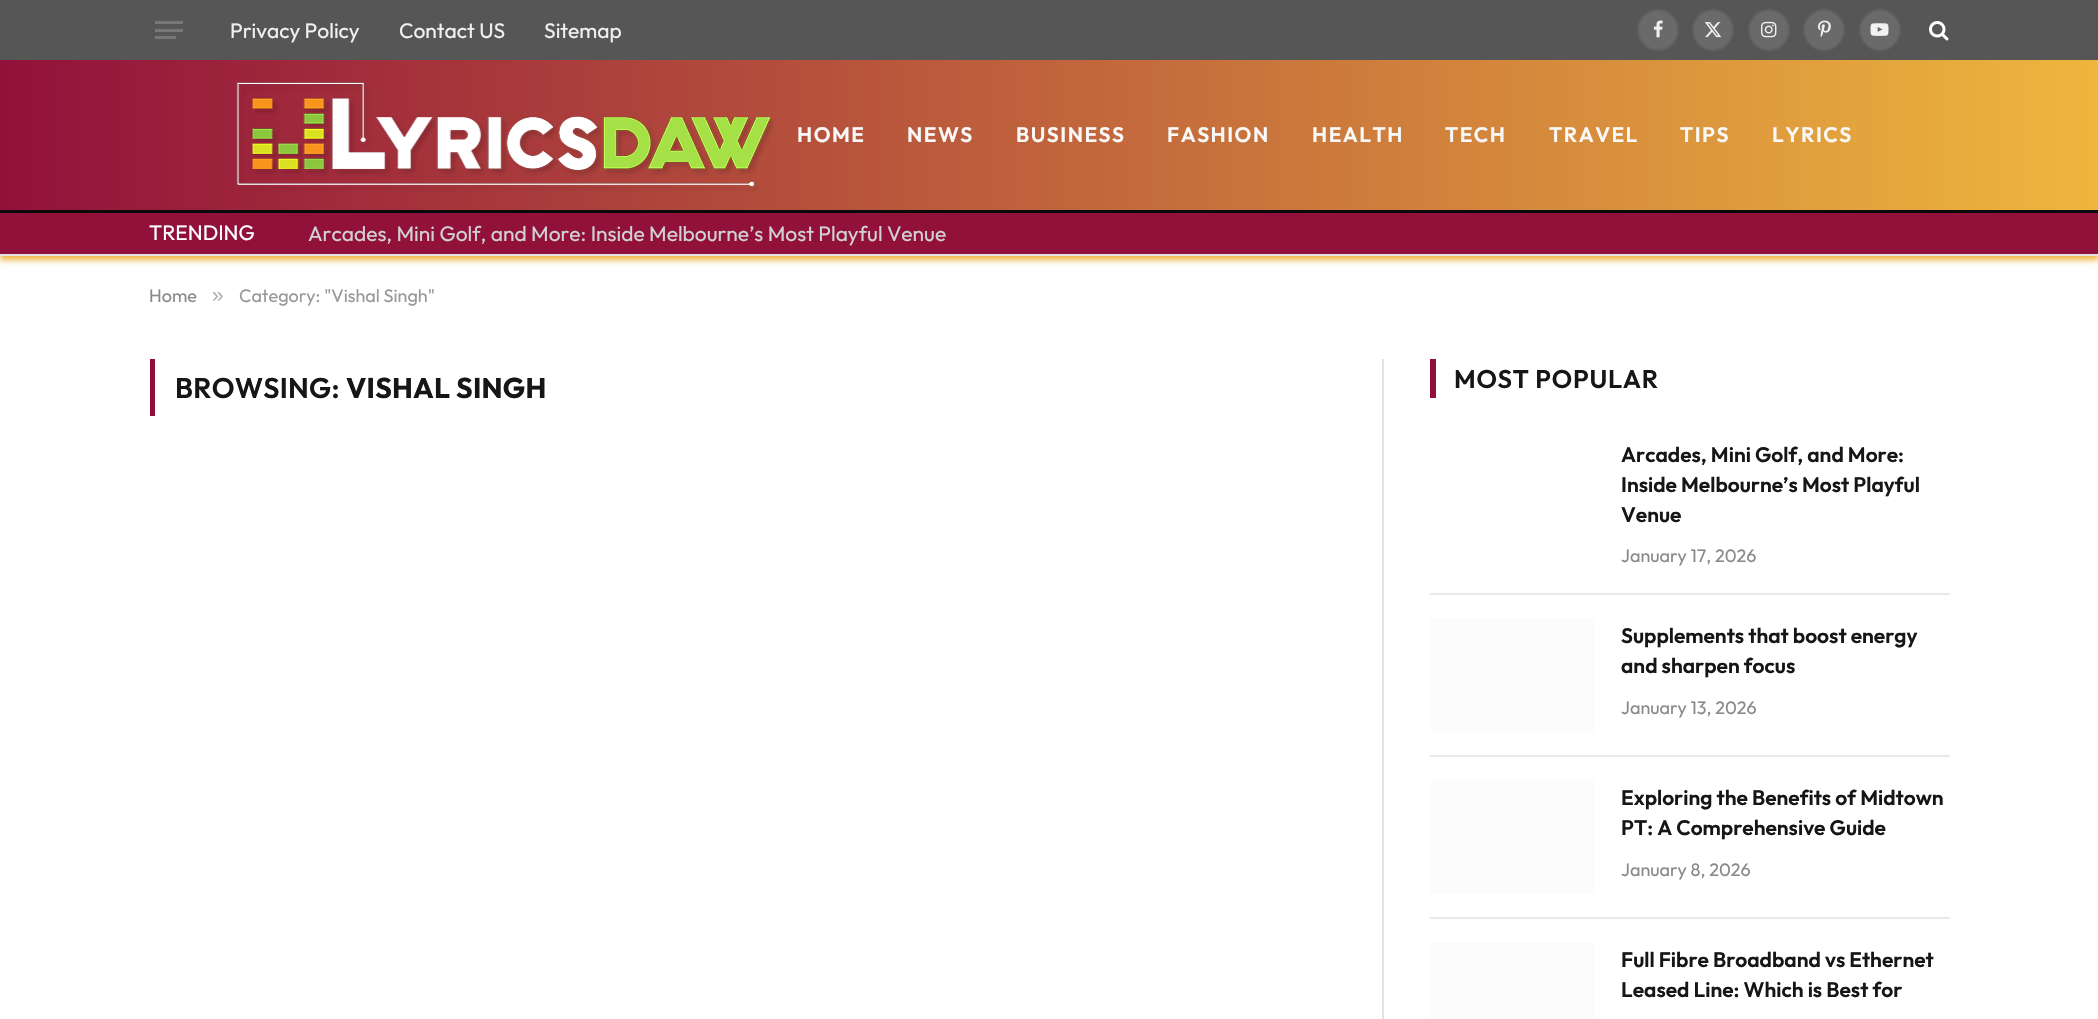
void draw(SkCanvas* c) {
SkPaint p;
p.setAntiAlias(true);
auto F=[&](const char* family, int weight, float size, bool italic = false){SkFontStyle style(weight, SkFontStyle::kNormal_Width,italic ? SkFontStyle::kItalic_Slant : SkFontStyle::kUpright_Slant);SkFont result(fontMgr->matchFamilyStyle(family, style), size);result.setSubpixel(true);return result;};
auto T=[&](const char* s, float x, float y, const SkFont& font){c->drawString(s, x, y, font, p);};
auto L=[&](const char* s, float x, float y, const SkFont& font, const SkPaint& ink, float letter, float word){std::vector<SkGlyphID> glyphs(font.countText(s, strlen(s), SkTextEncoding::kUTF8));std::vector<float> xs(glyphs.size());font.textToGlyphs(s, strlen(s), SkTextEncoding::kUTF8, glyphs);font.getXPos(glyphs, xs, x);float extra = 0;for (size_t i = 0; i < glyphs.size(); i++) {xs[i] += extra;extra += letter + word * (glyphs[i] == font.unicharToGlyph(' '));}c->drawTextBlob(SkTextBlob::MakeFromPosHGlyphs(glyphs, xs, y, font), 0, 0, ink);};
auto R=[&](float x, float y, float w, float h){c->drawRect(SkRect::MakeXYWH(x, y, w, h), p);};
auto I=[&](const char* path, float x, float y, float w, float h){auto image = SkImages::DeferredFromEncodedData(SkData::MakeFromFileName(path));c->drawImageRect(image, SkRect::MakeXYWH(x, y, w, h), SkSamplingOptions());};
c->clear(0xffffffff);
p.setColor(0xffeeb63d);
p.setMaskFilter(SkMaskFilter::MakeBlur(kNormal_SkBlurStyle, 3));
c->drawRect(SkRect::MakeXYWH(0,5,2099,255),p);
p.setMaskFilter(nullptr);
p.setColor(0xff565656);
R(0,0,2098,60);
p.setColor(0xff777777);
R(155,36,21,3);
R(155,21,28,3);
R(155,29,28,3);
auto f1 = F("Outfit",400,21);
p.setColor(0xfff0f0f0);
T("Privacy Policy",230,38,f1);
T("Contact US",399,38,f1);
T("Sitemap",544,38,f1);
p.setColor(0xff6a6a6a);
c->drawCircle(1658,30,21,p);
p.setStroke(true);
p.setStrokeWidth(2);
p.setColor(0x17000000);
c->drawCircle(1658,30,20,p);
I("1.png",1653,20,10,18);
p.setStroke(false);
p.setColor(0xff6a6a6a);
c->drawCircle(1713,30,21,p);
p.setStroke(true);
p.setColor(0x17000000);
c->drawCircle(1713,30,20,p);
I("2.png",1704,22,18,16);
p.setStroke(false);
p.setColor(0xff6a6a6a);
c->drawCircle(1769,30,21,p);
p.setStroke(true);
p.setColor(0x17000000);
c->drawCircle(1769,30,20,p);
I("3.png",1761,21,16,17);
p.setStroke(false);
p.setColor(0xff6a6a6a);
c->drawCircle(1824,30,21,p);
p.setStroke(true);
p.setColor(0x17000000);
c->drawCircle(1824,30,20,p);
I("4.png",1818,20,13,18);
p.setStroke(false);
p.setColor(0xff6a6a6a);
c->drawCircle(1880,30,21,p);
p.setStroke(true);
p.setColor(0x17000000);
c->drawCircle(1880,30,20,p);
I("5.png",1870,23,19,13);
I("6.png",1929,21,20,20);
p.setStroke(false);
{
const SkColor colors[] = {0xff92113b,0xffeeb63d};
const float stops[] = {0,1};
const SkPoint ends[] = {{0,135}, {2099,135}};
p.setShader(SkGradientShader::MakeLinear(ends, colors, stops, 2, SkTileMode::kClamp));
p.setAlpha(255);
}
R(0,60,2098,150);
I("7.png",236,82,538,110);
auto f2 = F("Outfit",600,21);
p.setShader(nullptr);
p.setColor(0xfff9f9f9);
L("HOME",797,142,f2,p,1.5,0);
L("NEWS",907,142,f2,p,1.5,0);
L("BUSINESS",1016,142,f2,p,1.5,0);
L("FASHION",1167,142,f2,p,1.5,0);
L("HEALTH",1312,142,f2,p,1.5,0);
L("TECH",1445,142,f2,p,1.5,0);
L("TRAVEL",1549,142,f2,p,1.5,0);
L("TIPS",1680,142,f2,p,1.5,0);
L("LYRICS",1772,142,f2,p,1.5,0);
p.setColor(0xff92113b);
R(0,213,2098,41);
p.setColor(0xff0a0a0a);
R(0,210,2098,3);
p.setColor(0xffe2e2e2);
R(0,254,2098,2);
p.setColor(0xffffffff);
T("TRENDING",149,240,f1);
p.setColor(0xffd1d1d1);
T("Arcades, Mini Golf, and More: Inside Melbourne’s Most Playful Venue",308,241,f1);
auto f3 = F("Outfit",400,18);
p.setColor(0xff8a8a8a);
T("Home",149,302,f3);
auto f4 = F("Liberation Sans",400,21);
p.setColor(0xffadadad);
T("»",212,302,f4);
p.setColor(0xff999999);
T("Category: \"Vishal Singh\"",239,302,f3);
p.setColor(0xff92113b);
R(150,359,5,57);
auto f5 = F("Outfit",600,28.5);
p.setColor(0xff161616);
L("BROWSING:",175,398,f5,p,.25,0);
auto f6 = F("Outfit",700,28.5);
L("VISHAL SINGH",346,398,f6,p,.25,0);
p.setColor(0xffe2e2e2);
R(1382,359,2,660);
p.setColor(0xff92113b);
R(1430,359,6,39);
auto f7 = F("Outfit",600,25.5);
p.setColor(0xff161616);
L("MOST POPULAR",1454,388,f7,p,.75,0);
T("Arcades, Mini Golf, and More:",1621,462,f2);
T("Inside Melbourne’s Most Playful",1621,492,f2);
T("Venue",1621,522,f2);
p.setColor(0xff8a8a8a);
T("January 17, 2026",1621,562,f3);
p.setColor(0xffe8e8e8);
R(1430,593,520,2);
p.setColor(0xfffcfcfc);
R(1430,618,165,114);
p.setColor(0xff161616);
T("Supplements that boost energy",1621,643,f2);
T("and sharpen focus",1621,673,f2);
p.setColor(0xff8a8a8a);
T("January 13, 2026",1621,714,f3);
p.setColor(0xffe8e8e8);
R(1430,755,520,2);
p.setColor(0xfffcfcfc);
R(1430,780,165,114);
p.setColor(0xff161616);
T("Exploring the Benefits of Midtown",1621,805,f2);
T("PT: A Comprehensive Guide",1621,835,f2);
p.setColor(0xff8a8a8a);
T("January 8, 2026",1621,876,f3);
p.setColor(0xffe8e8e8);
R(1430,917,520,2);
p.setColor(0xfffcfcfc);
R(1430,942,165,77);
p.setColor(0xff161616);
T("Full Fibre Broadband vs Ethernet",1621,967,f2);
T("Leased Line: Which is Best for",1621,997,f2);
}
